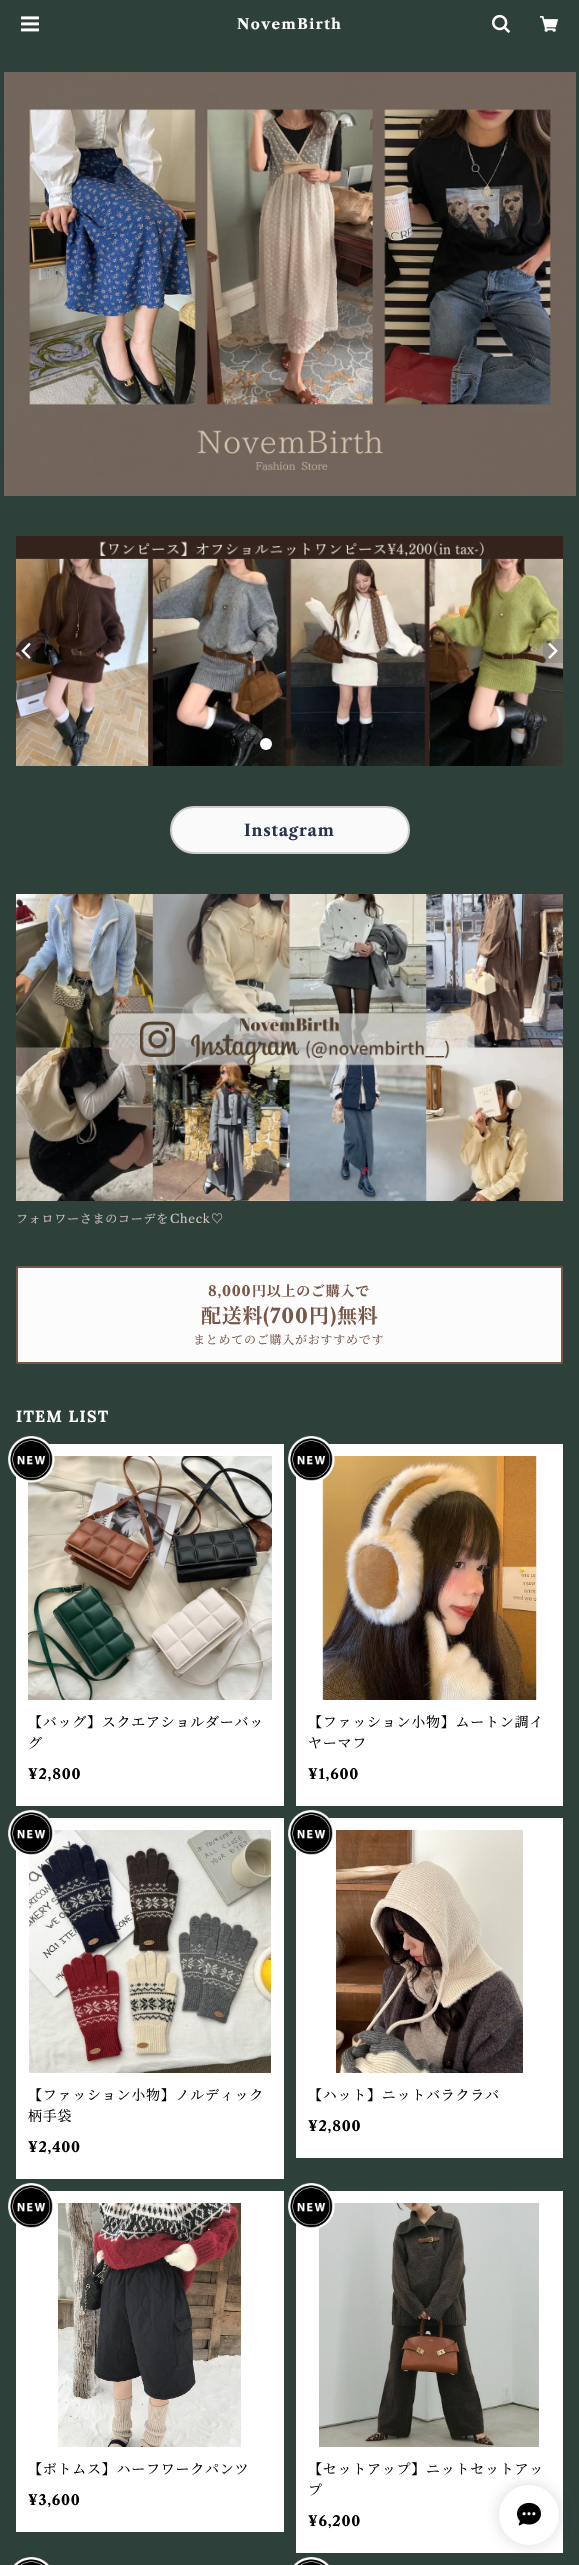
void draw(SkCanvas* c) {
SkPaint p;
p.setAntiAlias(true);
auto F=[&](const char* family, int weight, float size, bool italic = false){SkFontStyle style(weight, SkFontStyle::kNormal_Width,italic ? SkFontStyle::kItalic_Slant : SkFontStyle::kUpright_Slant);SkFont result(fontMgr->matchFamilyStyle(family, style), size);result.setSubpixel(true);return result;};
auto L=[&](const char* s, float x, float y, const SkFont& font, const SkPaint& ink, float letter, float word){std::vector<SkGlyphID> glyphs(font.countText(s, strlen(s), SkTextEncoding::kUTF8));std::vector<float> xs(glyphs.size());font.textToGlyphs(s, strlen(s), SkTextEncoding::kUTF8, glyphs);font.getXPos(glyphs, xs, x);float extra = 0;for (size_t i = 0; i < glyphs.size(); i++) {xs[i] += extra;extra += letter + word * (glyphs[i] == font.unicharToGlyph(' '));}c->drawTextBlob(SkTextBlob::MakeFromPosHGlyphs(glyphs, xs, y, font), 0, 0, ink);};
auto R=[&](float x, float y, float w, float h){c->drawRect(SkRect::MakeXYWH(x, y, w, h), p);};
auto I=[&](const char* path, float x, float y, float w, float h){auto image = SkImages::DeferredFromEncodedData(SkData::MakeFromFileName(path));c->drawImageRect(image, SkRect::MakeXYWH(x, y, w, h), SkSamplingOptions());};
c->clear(0xff2d403a);
I("1.png",21,16,18,16);
auto f1 = F("Libre Caslon Text",700,14);
p.setColor(0xffffffff);
L("NovemBirth",237,29,f1,p,1.5,0);
I("2.png",492,14,18,19);
I("3.png",540,16,18,16);
I("4.png",4,72,572,424);
I("5.png",16,536,547,230);
p.setColor(0x33384359);
R(16,639,20,24);
I("6.png",21,642,10,17);
R(543,639,20,24);
I("7.png",548,642,10,17);
p.setColor(0xffffffff);
c->drawCircle(266,744,6,p);
p.setColor(0x4d000000);
c->drawCircle(290,744,6,p);
c->drawCircle(314,744,6,p);
p.setColor(0xfffafafa);
c->drawRoundRect(SkRect::MakeXYWH(171,807,238,46),23,23,p);
p.setStroke(true);
p.setStrokeWidth(2);
p.setColor(0xffcccccc);
c->drawRoundRect(SkRect::MakeXYWH(171,807,238,46),23,23,p);
auto f2 = F("Libre Caslon Text",700,16);
p.setStroke(false);
p.setColor(0xff28324e);
L("Instagram",244,836,f2,p,.75,0);
I("8.png",16,894,547,307);
auto f3 = F("Noto Serif JP",400,12);
p.setColor(0xffcfc2be);
L("フォロワーさまのコーデを",16,1223,f3,p,.75,0);
auto f4 = F("Libre Caslon Text",400,12);
L("Check",170,1223,f4,p,.75,0);
L("♡",211,1223,f3,p,.75,0);
p.setColor(0xfffcfcfd);
c->drawRoundRect(SkRect::MakeXYWH(17,1267,545,96),1,1,p);
p.setStroke(true);
p.setColor(0xff795648);
c->drawRoundRect(SkRect::MakeXYWH(17,1267,545,96),1,1,p);
p.setStroke(false);
L("8,000",208,1296,f1,p,.75,0);
auto f5 = F("Noto Serif JP",700,14);
L("円以上のご購入で",252,1296,f5,p,.75,0);
auto f6 = F("Noto Serif JP",700,20);
L("配送料",201,1323,f6,p,.75,0);
auto f7 = F("Libre Caslon Text",700,20);
L("(700",263,1323,f7,p,.75,0);
L("円",309,1323,f6,p,.75,0);
L(")",330,1323,f7,p,.75,0);
L("無料",337,1323,f6,p,.75,0);
L("まとめてのご購入がおすすめです",193,1344,f3,p,.75,0);
auto f8 = F("Lora",700,16);
p.setColor(0xffffffff);
L("ITEM LIST",16,1422,f8,p,1.25,0);
R(16,1444,268,362);
I("10.png",28,1456,244,244);
I("9.png",8,1436,47,47);
auto f9 = F("Noto Serif JP",400,14);
p.setColor(0xff000000);
L("【バッグ】スクエアショルダーバッ",28,1727,f9,p,.75,0);
L("グ",28,1748,f9,p,.75,0);
L("¥2,800",28,1779,f1,p,.75,0);
p.setColor(0xffffffff);
R(296,1444,267,362);
I("12.png",322,1456,215,244);
I("11.png",288,1436,47,45);
p.setColor(0xff000000);
L("【ファッション小物】ムートン調イ",308,1727,f9,p,.75,0);
L("ヤーマフ",308,1748,f9,p,.75,0);
L("¥1,600",308,1779,f1,p,.75,0);
p.setColor(0xffffffff);
R(16,1818,268,361);
I("14.png",29,1830,242,243);
I("13.png",8,1810,47,47);
p.setColor(0xff000000);
L("【ファッション小物】ノルディック",28,2100,f9,p,.75,0);
L("柄手袋",28,2121,f9,p,.75,0);
L("¥2,400",28,2152,f1,p,.75,0);
p.setColor(0xffffffff);
R(296,1818,267,340);
I("15.png",288,1810,45,45);
I("16.png",336,1830,187,243);
p.setColor(0xff000000);
L("【ハット】ニットバラクラバ",308,2100,f9,p,.75,0);
L("¥2,800",308,2131,f1,p,.75,0);
p.setColor(0xffffffff);
R(16,2191,268,341);
I("17.png",8,2183,45,45);
I("18.png",58,2203,183,244);
p.setColor(0xff000000);
L("【ボトムス】ハーフワークパンツ",28,2474,f9,p,.75,0);
L("¥3,600",28,2505,f1,p,.75,0);
p.setColor(0xffffffff);
R(296,2191,267,362);
I("20.png",319,2203,220,244);
I("19.png",288,2183,47,46);
p.setColor(0xff000000);
L("【セットアップ】ニットセットアッ",308,2474,f9,p,.75,0);
L("プ",308,2495,f9,p,.75,0);
L("¥6,200",308,2526,f1,p,.75,0);
I("21.png",13,2557,36,8);
I("22.png",293,2557,36,8);
p.setColor(0x33334258);
p.setMaskFilter(SkMaskFilter::MakeBlur(kNormal_SkBlurStyle, 7.5));
c->drawRoundRect(SkRect::MakeXYWH(499,2485,60,60),30,30,p);
p.setMaskFilter(nullptr);
p.setColor(0xffffffff);
c->drawCircle(529,2515,30,p);
I("23.png",517,2502,24,24);
}
